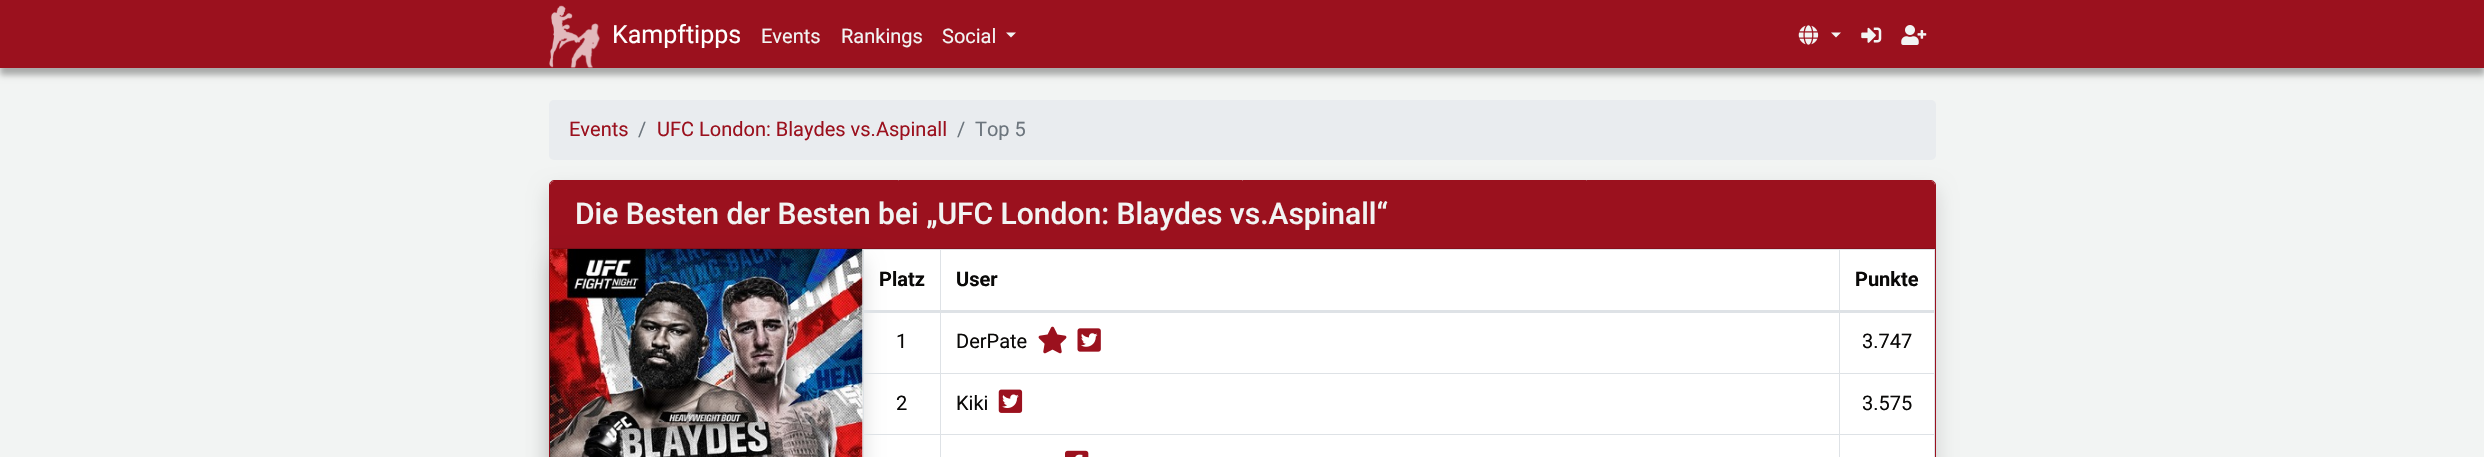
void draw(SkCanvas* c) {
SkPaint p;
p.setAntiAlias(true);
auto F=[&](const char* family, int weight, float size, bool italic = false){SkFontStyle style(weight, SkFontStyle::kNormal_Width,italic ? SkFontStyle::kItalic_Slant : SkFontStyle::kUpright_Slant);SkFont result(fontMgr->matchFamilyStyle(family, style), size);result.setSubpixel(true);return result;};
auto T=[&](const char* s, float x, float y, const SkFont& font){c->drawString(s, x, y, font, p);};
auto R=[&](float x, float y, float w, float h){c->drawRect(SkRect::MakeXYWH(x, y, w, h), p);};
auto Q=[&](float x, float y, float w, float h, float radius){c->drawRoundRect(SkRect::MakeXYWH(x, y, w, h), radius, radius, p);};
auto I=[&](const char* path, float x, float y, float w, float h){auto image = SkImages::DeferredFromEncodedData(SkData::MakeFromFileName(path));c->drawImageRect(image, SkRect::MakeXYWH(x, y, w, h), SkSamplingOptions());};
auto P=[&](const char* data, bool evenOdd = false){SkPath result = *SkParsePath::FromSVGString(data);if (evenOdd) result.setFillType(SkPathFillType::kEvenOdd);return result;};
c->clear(0xfff2f4f3);
p.setColor(0x4d000000);
p.setMaskFilter(SkMaskFilter::MakeBlur(kNormal_SkBlurStyle, 3));
c->drawRect(SkRect::MakeXYWH(0,8,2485,67),p);
p.setMaskFilter(nullptr);
p.setColor(0xff9b111e);
R(0,0,2484,68);
I("1.png",549,5,51,63);
auto f1 = F("Roboto",400,25);
p.setColor(0xffffffff);
T("Kampftipps",612,43,f1);
auto f2 = F("Roboto",400,20);
p.setColor(0xfff2f4f3);
T("Events",761,43,f2);
T("Rankings",841,43,f2);
T("Social",942,43,f2);
c->drawPath(P("M1006 32.5h10l-5 5z"),p);
I("2.png",1798,25,21,20);
c->drawPath(P("M1831 32.5h10l-5 5z"),p);
I("3.png",1861,27,21,16);
I("4.png",1901,25,26,20);
p.setColor(0xffe9ecef);
Q(549,100,1387,60,5);
p.setColor(0xff9b111e);
T("Events",569,136,f2);
p.setColor(0xff6c757d);
T("/",638,136,f2);
p.setColor(0xff9b111e);
T("UFC London: Blaydes vs.Aspinall",657,136,f2);
p.setColor(0xff6c757d);
T("/",957,136,f2);
T("Top 5",975,136,f2);
p.setColor(0x26000000);
p.setMaskFilter(SkMaskFilter::MakeBlur(kNormal_SkBlurStyle, 10));
c->drawRoundRect(SkRect::MakeXYWH(549,190,1387,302),5,5,p);
p.setMaskFilter(nullptr);
p.setColor(0xffffffff);
c->drawRoundRect(SkRect::MakeXYWH(549.5,180.5,1386,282),4.5,4.5,p);
p.setStroke(true);
p.setStrokeWidth(1);
p.setColor(0xff9b111e);
c->drawRoundRect(SkRect::MakeXYWH(549.5,180.5,1386,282),4.5,4.5,p);
p.setStroke(false);
c->drawPath(P("M554 181h1377c2 0 4 2 4 4v64h-1385v-64c0-2 2-4 4-4z"),p);
p.setColor(0xff880f1a);
R(550,248,1385,1);
auto f3 = F("Roboto",500,30);
p.setColor(0xfff2f4f3);
T("Die Besten der Besten bei „UFC London: Blaydes vs.Aspinall“",575,224,f3);
p.setColor(0x26000000);
p.setMaskFilter(SkMaskFilter::MakeBlur(kNormal_SkBlurStyle, 10));
c->drawRoundRect(SkRect::MakeXYWH(550,259,313,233),5,5,p);
p.setMaskFilter(nullptr);
I("5.png",550,248,313,209);
p.setColor(0xffdee2e6);
R(1839,249,96,1);
R(1839,373,96,1);
R(1839,434,96,1);
R(1839,434,1,23);
R(940,434,900,1);
R(1839,373,1,62);
R(940,373,900,1);
R(1839,310,1,64);
R(1839,249,1,62);
R(940,249,900,1);
R(940,434,1,23);
R(863,434,78,1);
R(940,373,1,62);
R(863,373,78,1);
R(940,310,1,64);
R(940,249,1,62);
R(863,249,78,1);
R(863,434,1,23);
R(863,310,1,125);
R(863,249,1,62);
auto f4 = F("Roboto",700,20);
p.setColor(0xff0a0908);
T("Platz",879,286,f4);
T("User",956,286,f4);
p.setColor(0xffdee2e6);
R(1934,434,1,23);
R(1934,310,1,125);
R(1934,249,1,62);
R(863,310,1072,3);
p.setColor(0xff0a0908);
T("Punkte",1855,286,f4);
T("1",896,348,f2);
T("DerPate",956,348,f2);
I("6.png",1038,326,29,28);
I("7.png",1077,328,24,24);
T("3.747",1862,348,f2);
T("2",896,410,f2);
T("Kiki",956,410,f2);
I("8.png",998,389,25,24);
T("3.575",1862,410,f2);
I("9.png",1065,450,24,7);
}
